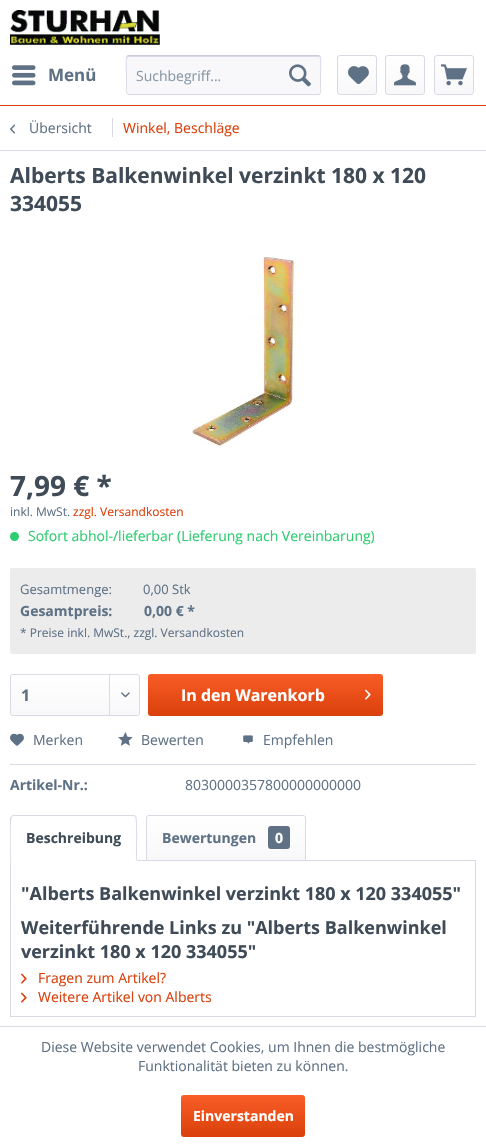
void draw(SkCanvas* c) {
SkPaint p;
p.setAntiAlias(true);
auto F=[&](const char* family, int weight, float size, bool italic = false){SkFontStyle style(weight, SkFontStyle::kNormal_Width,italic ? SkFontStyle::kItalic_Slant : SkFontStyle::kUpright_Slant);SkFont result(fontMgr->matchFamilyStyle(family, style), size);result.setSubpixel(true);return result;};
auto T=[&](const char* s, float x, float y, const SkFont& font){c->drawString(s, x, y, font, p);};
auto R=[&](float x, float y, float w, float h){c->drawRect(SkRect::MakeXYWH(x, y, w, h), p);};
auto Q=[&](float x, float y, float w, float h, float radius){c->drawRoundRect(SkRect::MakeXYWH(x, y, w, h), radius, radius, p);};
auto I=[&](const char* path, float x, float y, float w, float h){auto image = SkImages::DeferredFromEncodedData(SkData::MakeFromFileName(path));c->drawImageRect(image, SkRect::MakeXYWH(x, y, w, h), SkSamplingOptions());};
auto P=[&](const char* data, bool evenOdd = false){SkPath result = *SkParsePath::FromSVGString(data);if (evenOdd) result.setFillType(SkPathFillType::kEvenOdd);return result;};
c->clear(0xffffffff);
p.setColor(0xffd9400b);
R(0,105,486,1);
I("1.png",10,10,150,35);
I("2.png",12,65,24,21);
auto f1 = F("Open Sans",700,17);
p.setColor(0xff5f7285);
T("Menü",48,81,f1);
p.setColor(0xfff8f8fa);
Q(126,55,195,40,3);
p.setColor(0xffdadae5);
c->drawPath(P("M129 57h189l2 1v1v-1c0-1-1-2-2-2h-189c-1 0-2 1-2 2v1c0-1 1-2 2-2z"),p);
p.setStroke(true);
p.setStrokeWidth(1);
p.setColor(0xffcbcbdb);
c->drawPath(P("M127 56l2-.5h189l2 .5"),p);
p.setColor(0xffdadae5);
c->drawPath(P("M320 56c1.5 2 .5 16 .5 19v11.5c0 1.5 1.5 8-2.5 8h-189c-4 0-2.5-6.5-2.5-8v-11.5c0-3-1-17 .5-19"),p);
auto f2 = F("Open Sans",400,14);
p.setStroke(false);
p.setColor(0xff8798a9);
T("Suchbegriff...",136,81,f2);
I("3.png",289,64,22,23);
{
const SkColor colors[] = {0xffffffff,0xfff8f8fa};
const float stops[] = {0,1};
const SkPoint ends[] = {{357,56}, {357,94}};
p.setShader(SkGradientShader::MakeLinear(ends, colors, stops, 2, SkTileMode::kClamp));
p.setAlpha(255);
}
Q(338,56,38,38,2);
p.setStroke(true);
p.setShader(nullptr);
p.setColor(0xffdadae5);
c->drawRoundRect(SkRect::MakeXYWH(337.5,55.5,39,39),2.5,2.5,p);
I("4.png",348,66,21,19);
p.setStroke(false);
{
const SkColor colors[] = {0xffffffff,0xfff8f8fa};
const float stops[] = {0,1};
const SkPoint ends[] = {{405,56}, {405,94}};
p.setShader(SkGradientShader::MakeLinear(ends, colors, stops, 2, SkTileMode::kClamp));
p.setAlpha(255);
}
Q(386,56,38,38,2);
p.setStroke(true);
p.setShader(nullptr);
p.setColor(0xffdadae5);
c->drawRoundRect(SkRect::MakeXYWH(385.5,55.5,39,39),2.5,2.5,p);
I("5.png",394,64,22,22);
p.setStroke(false);
{
const SkColor colors[] = {0xffffffff,0xfff8f8fa};
const float stops[] = {0,1};
const SkPoint ends[] = {{454,56}, {454,94}};
p.setShader(SkGradientShader::MakeLinear(ends, colors, stops, 2, SkTileMode::kClamp));
p.setAlpha(255);
}
Q(435,56,38,38,2);
p.setStroke(true);
p.setShader(nullptr);
p.setColor(0xffdadae5);
c->drawRoundRect(SkRect::MakeXYWH(434.5,55.5,39,39),2.5,2.5,p);
I("6.png",441,64,26,22);
p.setStroke(false);
R(0,150,486,1);
I("7.png",10,124,5,10);
p.setColor(0xff5f7285);
T("Übersicht",29,133,f2);
p.setColor(0xffdadae5);
R(112,118,1,19);
p.setColor(0xffd9400b);
T("Winkel, Beschläge",123,133,f2);
auto f3 = F("Open Sans",700,21);
p.setColor(0xff3f4c58);
T("Alberts Balkenwinkel verzinkt 180 x 120",10,183,f3);
T("334055",10,211,f3);
I("8.png",189,256,109,192);
auto f4 = F("Open Sans",700,28);
T("7,99 € *",10,496,f4);
auto f5 = F("Open Sans",400,12);
p.setColor(0xff5f7285);
T("inkl. MwSt.",10,516,f5);
p.setColor(0xffd9400b);
T("zzgl. Versandkosten",73,516,f5);
p.setColor(0xff2ecc71);
c->drawCircle(14.5,536.5,4.5,p);
T("Sofort abhol-/lieferbar (Lieferung nach Vereinbarung)",28,541,f2);
p.setColor(0xffececec);
Q(10,568,466,86,2);
auto f6 = F("Open Sans",400,13);
p.setColor(0xff5f7285);
T("Gesamtmenge:",20,594,f6);
T("0,00 Stk",143,594,f6);
auto f7 = F("Open Sans",700,14);
T("Gesamtpreis:",20,616,f7);
T("0,00 € *",144,616,f7);
T("* Preise inkl. MwSt., zzgl. Versandkosten",20,637,f5);
{
const SkColor colors[] = {0xffffffff,0xfff8f8fa};
const float stops[] = {0,1};
const SkPoint ends[] = {{75,675}, {75,715}};
p.setShader(SkGradientShader::MakeLinear(ends, colors, stops, 2, SkTileMode::kClamp));
p.setAlpha(255);
}
Q(11,675,128,40,2);
p.setStroke(true);
p.setShader(nullptr);
p.setColor(0xffdadae5);
c->drawRoundRect(SkRect::MakeXYWH(10.5,674.5,129,41),2.5,2.5,p);
auto f8 = F("Open Sans",700,16);
p.setStroke(false);
p.setColor(0xff5f7285);
T("1",21,701,f8);
p.setColor(0xffdadae5);
R(109,675,1,40);
I("9.png",121,692,9,6);
{
const SkColor colors[] = {0xfffa5d27,0xffd9400b};
const float stops[] = {0,1};
const SkPoint ends[] = {{266,674}, {266,716}};
p.setShader(SkGradientShader::MakeLinear(ends, colors, stops, 2, SkTileMode::kClamp));
p.setAlpha(255);
}
Q(148,674,235,42,3);
p.setShader(nullptr);
p.setColor(0xffffffff);
T("In den Warenkorb",181,701,f8);
I("10.png",365,689,6,11);
p.setColor(0xffdadae5);
R(10,764,466,1);
I("11.png",10,733,14,13);
p.setColor(0xff5f7285);
T("Merken",33,745,f2);
I("12.png",118,732,15,14);
T("Bewerten",141,745,f2);
I("13.png",243,735,10,9);
T("Empfehlen",263,745,f2);
T("Artikel-Nr.:",10,790,f7);
T("8030000357800000000000",185,790,f2);
p.setStroke(true);
p.setColor(0xffdadae5);
c->drawRect(SkRect::MakeXYWH(10.5,860.5,465,156),p);
p.setStroke(false);
p.setColor(0xffffffff);
c->drawPath(P("M13 815h121c1.5 0 3 1.5 3 3v43h-127v-43c0-1.5 1.5-3 3-3z"),p);
p.setColor(0xffdadae5);
c->drawPath(P("M13 815l-2 1l1 1l1-1h121l1 1l1-1l-2-1z"),p);
c->drawPath(P("M137 861c0-5 1-43-1-45l-1 1c2 1 1 38 1 43z"),p);
p.setColor(0xffffffff);
c->drawPath(P("M137 861l-1-1h-125l-1 1z"),p);
p.setColor(0xffdadae5);
c->drawPath(P("M10 861l1-1c0-5-1-42 1-43l-1-1l-1 2z"),p);
p.setColor(0xff3f4c58);
T("Beschreibung",26,843,f7);
{
const SkColor colors[] = {0xffffffff,0xfff8f8fa};
const float stops[] = {0,1};
const SkPoint ends[] = {{226,816}, {226,860}};
p.setShader(SkGradientShader::MakeLinear(ends, colors, stops, 2, SkTileMode::kClamp));
p.setAlpha(255);
}
c->drawPath(P("M149 816h154c1 0 2 1 2 2v42h-158v-42c0-1 1-2 2-2z"),p);
p.setStroke(true);
p.setShader(nullptr);
p.setColor(0xffdadae5);
c->drawPath(P("M149 815.5h154c1.5 0 2.5 1 2.5 2.5v42.5h-159v-42.5c0-1.5 1-2.5 2.5-2.5z"),p);
p.setStroke(false);
p.setColor(0xff5f7285);
T("Bewertungen",162,843,f7);
Q(268,826,22,23,3);
p.setColor(0xffffffff);
T("0",275,843,f7);
auto f9 = F("Open Sans",700,18);
p.setColor(0xff3f4c58);
T("\"Alberts Balkenwinkel verzinkt 180 x 120 334055\"",21,900,f9);
T("Weiterführende Links zu \"Alberts Balkenwinkel",21,934,f9);
T("verzinkt 180 x 120 334055\"",21,958,f9);
I("14.png",21,973,6,11);
p.setColor(0xffd9400b);
T("Fragen zum Artikel?",38,983,f2);
I("14.png",21,992,6,11);
T("Weitere Artikel von Alberts",38,1002,f2);
p.setColor(0xffdadae5);
R(0,1026,486,1);
p.setColor(0xff5f7285);
T("Diese Website verwendet Cookies, um Ihnen die bestmögliche",41,1052,f2);
T("Funktionalität bieten zu können.",138,1071,f2);
{
const SkColor colors[] = {0xfffa5d27,0xffd9400b};
const float stops[] = {0,1};
const SkPoint ends[] = {{243,1095}, {243,1137}};
p.setShader(SkGradientShader::MakeLinear(ends, colors, stops, 2, SkTileMode::kClamp));
p.setAlpha(255);
}
Q(181,1095,124,42,3);
p.setShader(nullptr);
p.setColor(0xffffffff);
T("Einverstanden",193,1121,f7);
}
